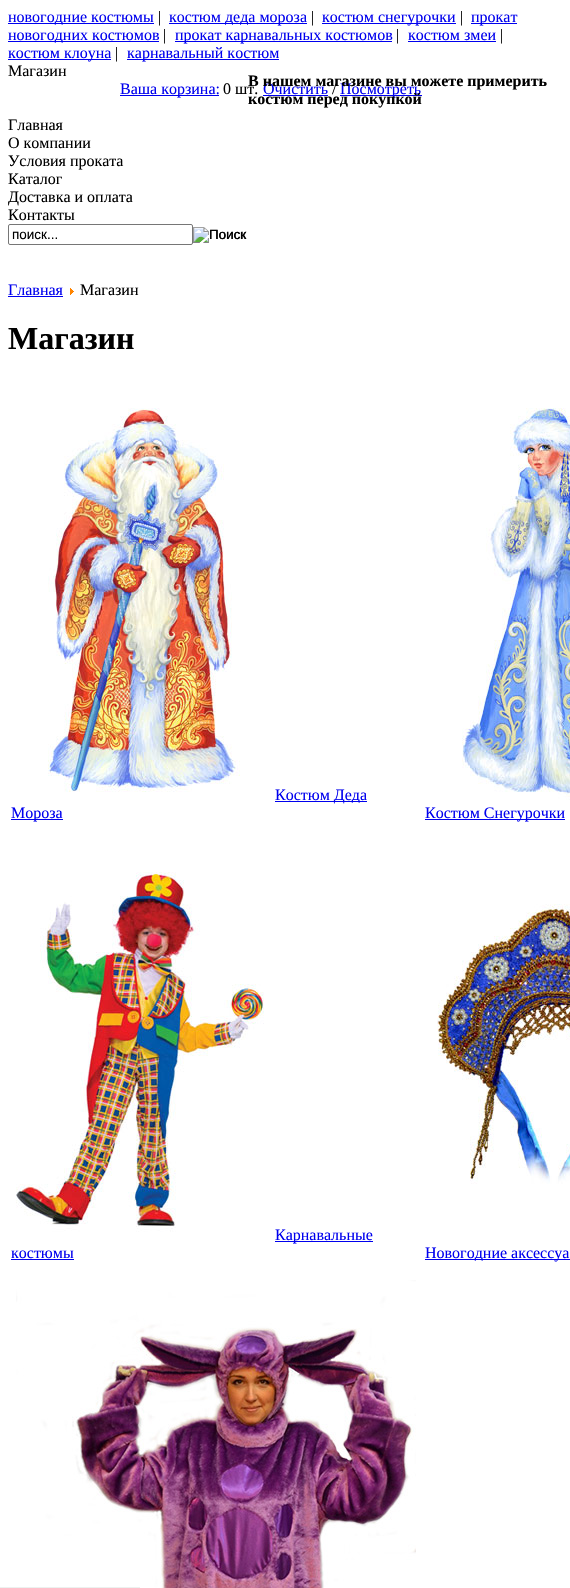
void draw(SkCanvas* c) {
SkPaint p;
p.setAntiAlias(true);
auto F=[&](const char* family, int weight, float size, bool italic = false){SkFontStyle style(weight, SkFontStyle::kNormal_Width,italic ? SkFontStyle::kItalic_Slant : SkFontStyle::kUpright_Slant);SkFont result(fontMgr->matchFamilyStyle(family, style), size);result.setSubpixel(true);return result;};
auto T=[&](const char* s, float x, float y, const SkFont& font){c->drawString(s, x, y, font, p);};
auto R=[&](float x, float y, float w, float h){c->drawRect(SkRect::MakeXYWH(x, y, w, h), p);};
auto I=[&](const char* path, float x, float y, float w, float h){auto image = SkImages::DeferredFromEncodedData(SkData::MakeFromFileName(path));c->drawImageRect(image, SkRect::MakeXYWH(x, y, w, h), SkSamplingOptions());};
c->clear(0xffffffff);
p.setColor(0xff0000ee);
R(8,23,146,1);
auto f1 = F("Liberation Serif",400,16);
T("новогодние костюмы",8,22,f1);
p.setColor(0xff000000);
T("|",158,22,f1);
p.setColor(0xff0000ee);
R(169,23,138,1);
T("костюм деда мороза",169,22,f1);
p.setColor(0xff000000);
T("|",311,22,f1);
p.setColor(0xff0000ee);
R(322,23,134,1);
T("костюм снегурочки",322,22,f1);
p.setColor(0xff000000);
T("|",460,22,f1);
p.setColor(0xff0000ee);
R(471,23,46,1);
T("прокат",471,22,f1);
R(8,41,151,1);
T("новогодних костюмов",8,40,f1);
p.setColor(0xff000000);
T("|",163,40,f1);
p.setColor(0xff0000ee);
R(175,41,217,1);
T("прокат карнавальных костюмов",175,40,f1);
p.setColor(0xff000000);
T("|",396,40,f1);
p.setColor(0xff0000ee);
T("костюм змеи",408,40,f1);
R(408,41,88,1);
p.setColor(0xff000000);
T("|",500,40,f1);
p.setColor(0xff0000ee);
R(8,59,103,1);
T("костюм клоуна",8,58,f1);
p.setColor(0xff000000);
T("|",115,58,f1);
p.setColor(0xff0000ee);
R(127,59,152,1);
T("карнавальный костюм",127,58,f1);
p.setColor(0xff000000);
T("Магазин",8,76,f1);
T("0 шт.",223,94,f1);
p.setColor(0xff0000ee);
T("Очистить",263,94,f1);
p.setColor(0xff000000);
T("/",332,94,f1);
p.setColor(0xff0000ee);
R(340,95,82,1);
T("Посмотреть",340,94,f1);
auto f2 = F("Liberation Serif",700,16);
p.setColor(0xff000000);
T("В нашем магазине вы можете примерить",248,86,f2);
p.setColor(0xff0000ee);
R(263,95,65,1);
p.setColor(0xff000000);
T("костюм перед покупкой",248,104,f2);
p.setColor(0xff0000ee);
R(120,95,99,1);
T("Ваша корзина:",120,94,f1);
p.setColor(0xff000000);
T("Главная",8,130,f1);
T("О компании",8,148,f1);
T("Условия проката",8,166,f1);
T("Каталог",8,184,f1);
T("Доставка и оплата",8,202,f1);
T("Контакты",8,220,f1);
p.setStroke(true);
p.setStrokeWidth(1);
p.setColor(0xff767676);
c->drawRoundRect(SkRect::MakeXYWH(8.5,224.5,184,20),1.5,1.5,p);
auto f3 = F("Liberation Sans",400,13.5);
p.setStroke(false);
p.setColor(0xff000000);
T("поиск...",12,239,f3);
I("1.png",193,227,53,16);
T("Поиск",209,239,f3);
p.setColor(0xff0000ee);
T("Главная",8,295,f1);
R(8,296,55,1);
I("2.png",70,288,4,7);
p.setColor(0xff000000);
T("Магазин",80,295,f1);
auto f4 = F("Liberation Serif",700,32);
T("Магазин",8,349,f4);
I("3.png",48,408,192,384);
p.setColor(0xff0000ee);
R(275,801,92,1);
T("Костюм Деда",275,800,f1);
R(11,819,52,1);
T("Мороза",11,818,f1);
I("4.png",16,872,248,360);
R(275,1241,98,1);
T("Карнавальные",275,1240,f1);
T("костюмы",11,1258,f1);
R(11,1259,63,1);
I("5.png",16,1280,400,308);
I("6.png",462,408,108,392);
R(425,819,140,1);
T("Костюм Снегурочки",425,818,f1);
I("7.png",437,904,133,280);
R(425,1259,145,1);
T("Новогодние аксессуа",425,1258,f1);
p.setColor(0xffecf1ef);
R(0,1587,140,1);
}
